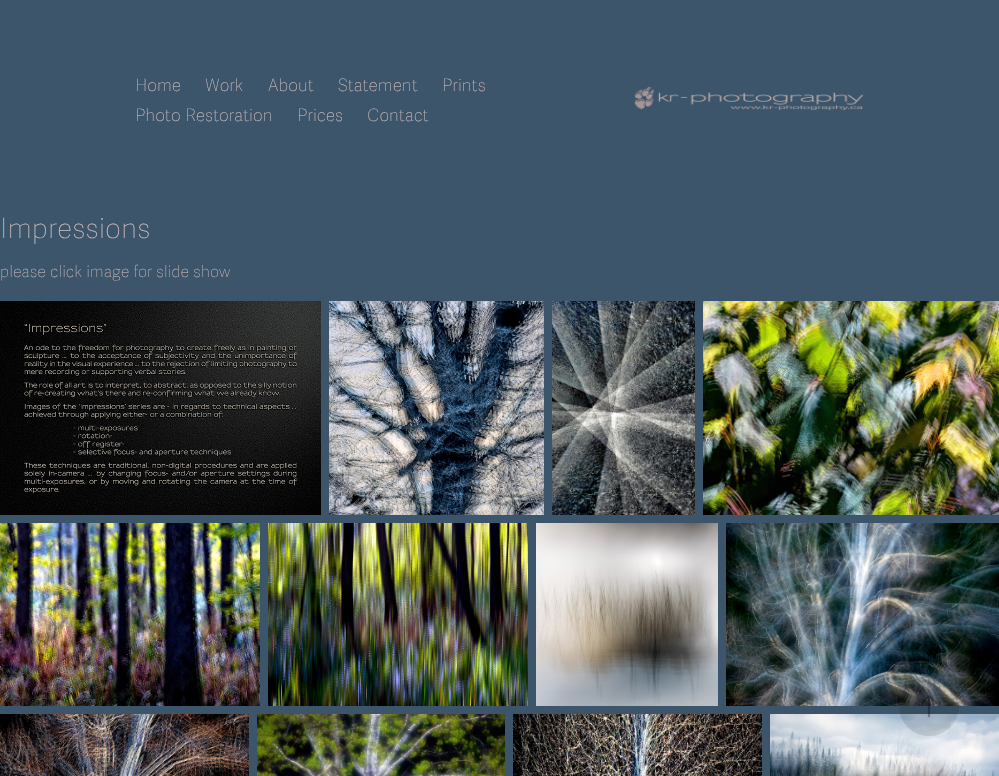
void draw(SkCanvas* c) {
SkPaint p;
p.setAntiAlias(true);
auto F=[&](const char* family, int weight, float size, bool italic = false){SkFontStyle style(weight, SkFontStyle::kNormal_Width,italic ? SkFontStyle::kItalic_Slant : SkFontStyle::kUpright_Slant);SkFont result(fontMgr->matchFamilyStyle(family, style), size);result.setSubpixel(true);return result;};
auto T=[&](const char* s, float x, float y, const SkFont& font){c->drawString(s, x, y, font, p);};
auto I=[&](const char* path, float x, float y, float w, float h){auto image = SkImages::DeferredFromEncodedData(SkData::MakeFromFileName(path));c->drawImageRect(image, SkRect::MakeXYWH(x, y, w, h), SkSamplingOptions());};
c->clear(0xff3d556b);
auto f1 = F("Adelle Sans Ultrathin",100,17);
p.setColor(0xffd2c0bf);
T("Home",135,91,f1);
T("Work",205,91,f1);
T("About",268,91,f1);
T("Statement",338,91,f1);
T("Prints",442,91,f1);
T("Photo Restoration",135,121,f1);
T("Prices",297,121,f1);
T("Contact",367,121,f1);
I("1.png",634,86,230,25);
auto f2 = F("Adelle Sans Ultrathin",100,28);
p.setColor(0xffcbbcba);
T("Impressions",0,238,f2);
auto f3 = F("Adelle Sans Ultrathin",100,16);
T("please click image for slide show",0,277,f3);
I("2.png",0,301,321,214);
I("3.png",329,301,215,214);
I("4.png",552,301,143,214);
I("5.png",703,301,296,214);
I("6.png",0,523,260,183);
I("7.png",268,523,260,183);
I("8.png",536,523,182,183);
I("9.png",726,523,273,183);
I("10.png",0,714,249,62);
I("11.png",257,714,248,62);
I("12.png",513,714,249,62);
I("13.png",770,714,229,62);
p.setColor(0x1a000000);
c->drawCircle(929,706,30,p);
I("14.png",921,695,16,23);
}
